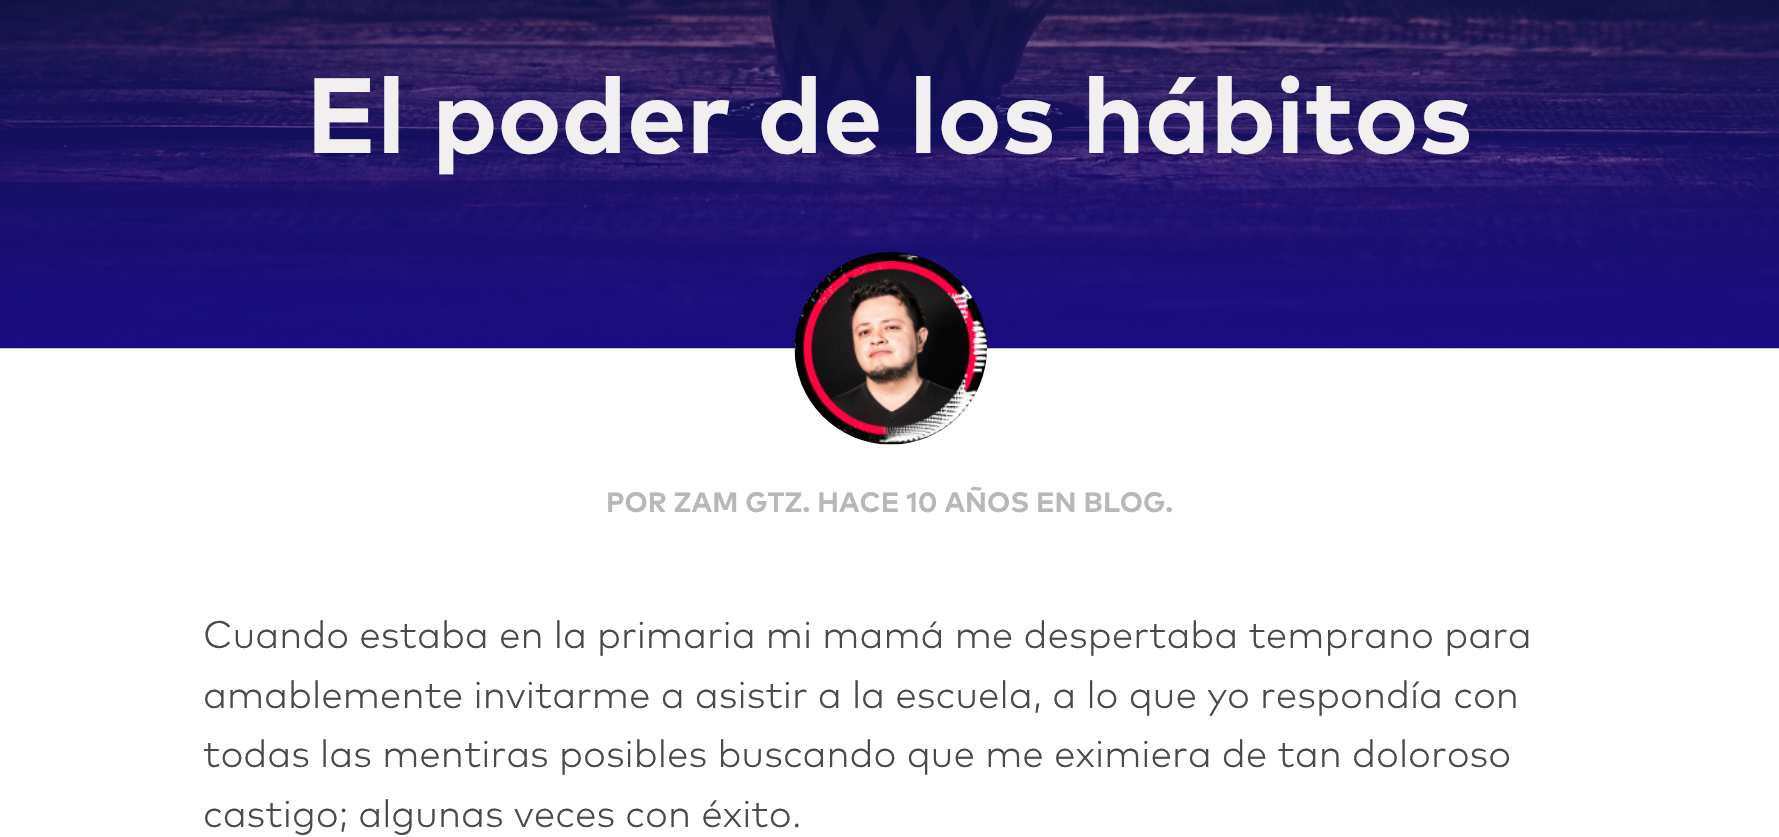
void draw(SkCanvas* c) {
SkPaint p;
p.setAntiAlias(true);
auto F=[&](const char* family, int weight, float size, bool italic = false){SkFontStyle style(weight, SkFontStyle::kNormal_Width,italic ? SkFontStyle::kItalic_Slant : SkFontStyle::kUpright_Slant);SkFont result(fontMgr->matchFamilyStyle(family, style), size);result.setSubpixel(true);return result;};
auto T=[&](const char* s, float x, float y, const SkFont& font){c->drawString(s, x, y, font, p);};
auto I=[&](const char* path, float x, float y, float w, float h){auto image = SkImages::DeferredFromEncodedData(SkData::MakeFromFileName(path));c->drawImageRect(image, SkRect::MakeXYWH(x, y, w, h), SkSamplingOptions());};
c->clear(0xffffffff);
I("1.png",0,0,1779,349);
auto f1 = F("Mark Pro",700,106.75);
p.setColor(0xfff1eff0);
T("El poder de los hábitos",306,153,f1);
I("2.png",794,252,193,193);
auto f2 = F("Mark Pro",700,28);
p.setColor(0xffb8b8b8);
T("POR ZAM GTZ. HACE 10 AÑOS EN BLOG.",606,512,f2);
auto f3 = F("Mark Pro",300,38.5);
p.setColor(0xff4a4a4a);
T("Cuando estaba en la primaria mi mamá me despertaba temprano para",203,648,f3);
T("amablemente invitarme a asistir a la escuela, a lo que yo respondía con",203,708,f3);
T("todas las mentiras posibles buscando que me eximiera de tan doloroso",203,767,f3);
T("castigo; algunas veces con éxito.",203,827,f3);
}
